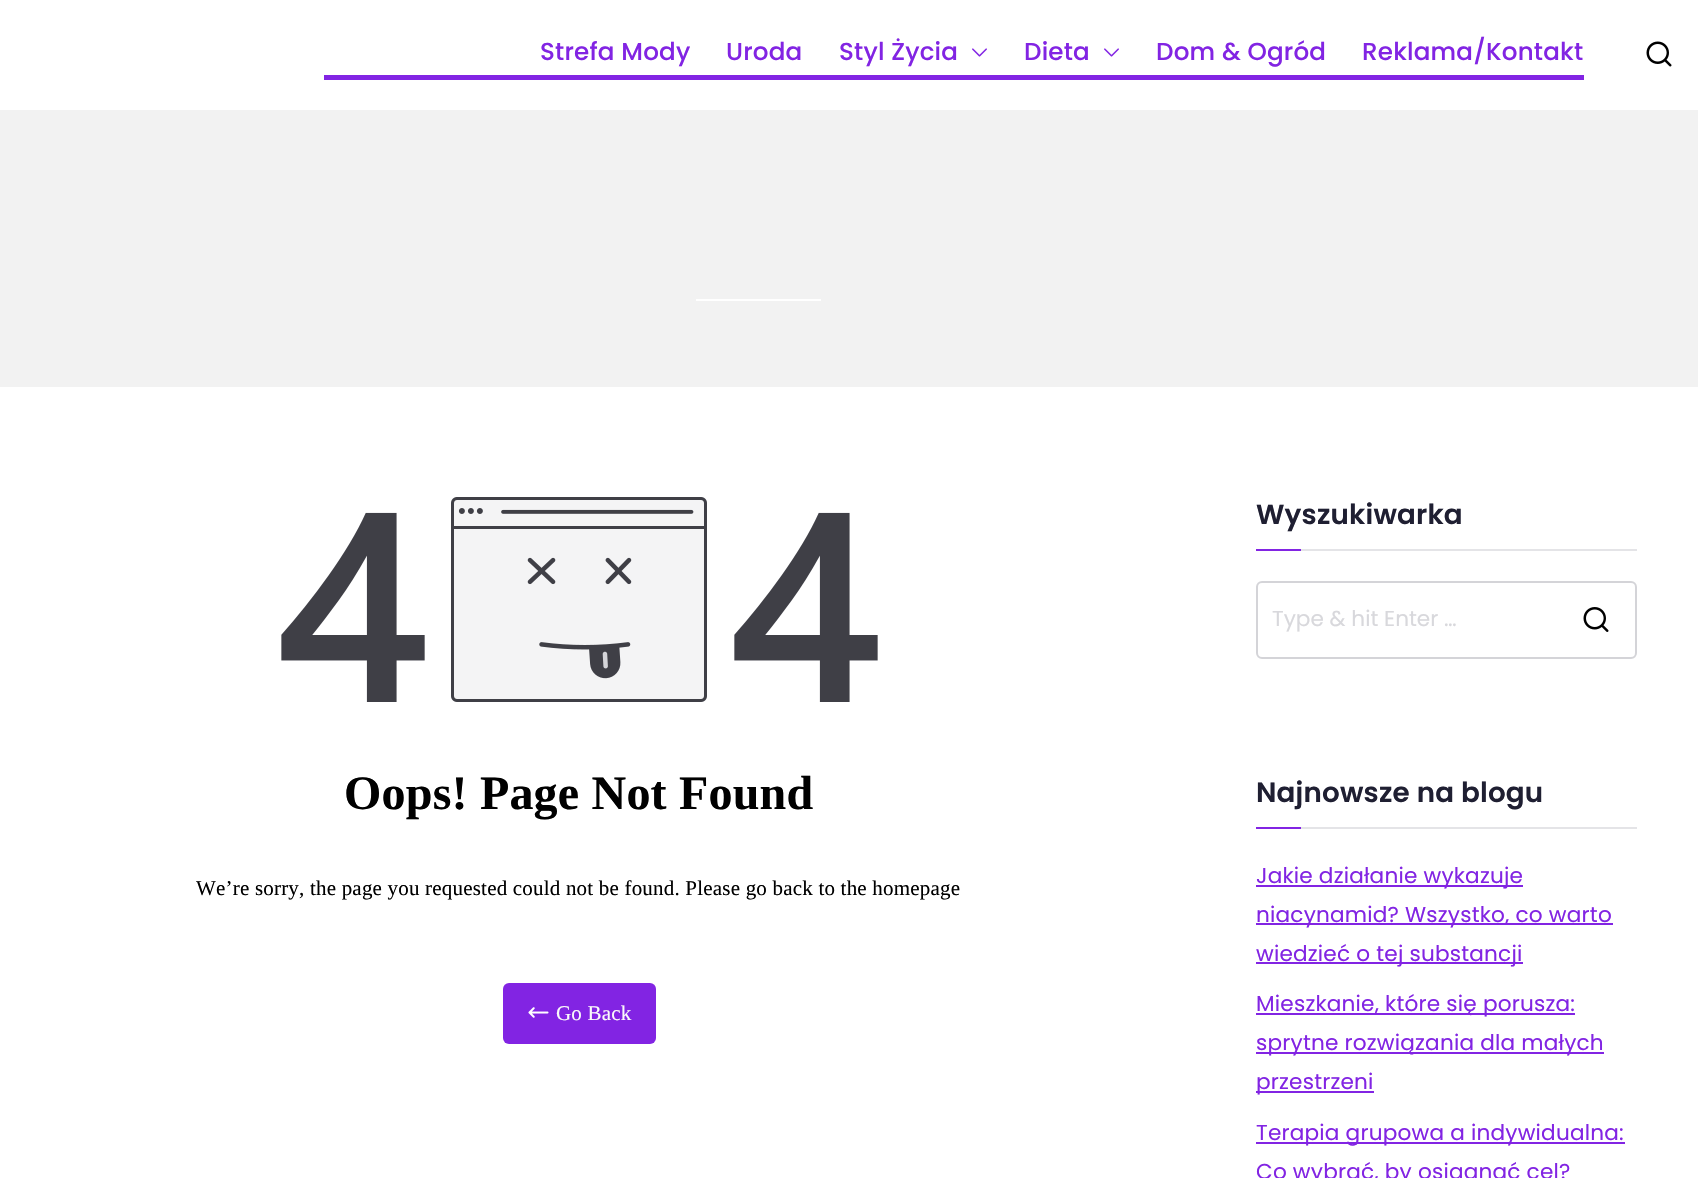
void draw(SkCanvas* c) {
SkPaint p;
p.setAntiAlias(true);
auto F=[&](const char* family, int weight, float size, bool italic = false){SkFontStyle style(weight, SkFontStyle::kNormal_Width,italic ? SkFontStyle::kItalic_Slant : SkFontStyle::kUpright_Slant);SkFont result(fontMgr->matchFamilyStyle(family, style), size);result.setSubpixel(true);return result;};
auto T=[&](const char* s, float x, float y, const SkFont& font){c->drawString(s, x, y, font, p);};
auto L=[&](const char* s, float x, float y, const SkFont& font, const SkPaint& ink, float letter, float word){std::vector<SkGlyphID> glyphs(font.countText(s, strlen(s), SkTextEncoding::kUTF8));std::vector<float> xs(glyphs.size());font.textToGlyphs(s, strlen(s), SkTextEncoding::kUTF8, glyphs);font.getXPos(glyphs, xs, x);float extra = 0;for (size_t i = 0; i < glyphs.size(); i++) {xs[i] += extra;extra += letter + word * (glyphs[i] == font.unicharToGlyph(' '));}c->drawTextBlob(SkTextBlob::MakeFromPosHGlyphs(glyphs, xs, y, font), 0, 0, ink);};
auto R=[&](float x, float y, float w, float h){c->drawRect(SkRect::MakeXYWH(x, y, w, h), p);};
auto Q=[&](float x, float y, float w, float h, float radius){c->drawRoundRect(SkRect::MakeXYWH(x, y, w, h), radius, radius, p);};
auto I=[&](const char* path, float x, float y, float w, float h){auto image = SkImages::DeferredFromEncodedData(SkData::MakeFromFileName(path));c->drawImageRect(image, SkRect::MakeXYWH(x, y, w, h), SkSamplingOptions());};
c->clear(0xffffffff);
p.setColor(0xff8224e3);
R(324,75,1260,5);
auto f1 = F("Poppins",500,24.6);
L("Strefa Mody",540,60,f1,p,.2,0);
L("Uroda",726,60,f1,p,.2,0);
L("Styl Życia",839,60,f1,p,.2,0);
I("1.png",972,48,15,9);
L("Dieta",1024,60,f1,p,.2,0);
I("1.png",1104,48,15,9);
L("Dom & Ogród",1156,60,f1,p,.2,0);
L("Reklama/Kontakt",1362,60,f1,p,.2,0);
I("2.png",1646,41,26,26);
p.setColor(0xfff2f2f2);
R(0,110,1698,277);
p.setColor(0xffffffff);
R(696,299,125,2);
I("3.png",281,497,597,205);
auto f2 = F("Liberation Serif",700,48);
p.setColor(0xff000000);
L("Oops! Page Not Found",344,809,f2,p,.2,0);
auto f3 = F("Liberation Serif",400,21);
L("We’re sorry, the page you requested could not be found. Please go back to the homepage",196,895,f3,p,.2,0);
p.setColor(0xff8224e3);
Q(503,983,153,61,6);
I("4.png",528,1007,21,11);
p.setColor(0xfffafafa);
L("Go Back",556,1020,f3,p,.2,0);
p.setColor(0xffe4e4e7);
R(1301,549,336,2);
auto f4 = F("Poppins",600,27.75);
p.setColor(0xff1f1f32);
L("Wyszukiwarka",1256,524,f4,p,.2,0);
p.setColor(0xff8224e3);
R(1256,549,45,2);
p.setStroke(true);
p.setStrokeWidth(2);
p.setColor(0xffd4d4d8);
c->drawRoundRect(SkRect::MakeXYWH(1257,582,379,76),5,5,p);
auto f5 = F("Poppins",400,21.6);
p.setStroke(false);
p.setColor(0xffd8d8dc);
T("Type & hit Enter …",1272,626,f5);
I("5.png",1583,607,26,25);
p.setColor(0xffe4e4e7);
R(1301,827,336,2);
p.setColor(0xff1f1f32);
L("Najnowsze na blogu",1256,802,f4,p,.2,0);
p.setColor(0xff8224e3);
R(1256,827,45,2);
R(1256,885,267,2);
L("Jakie działanie wykazuje",1256,883,f5,p,.2,0);
R(1256,923,357,2);
L("niacynamid? Wszystko, co warto",1256,922,f5,p,.2,0);
R(1256,962,267,2);
L("wiedzieć o tej substancji",1256,961,f5,p,.2,0);
R(1256,1013,319,2);
L("Mieszkanie, które się porusza:",1256,1011,f5,p,.2,0);
R(1256,1052,348,2);
L("sprytne rozwiązania dla małych",1256,1050,f5,p,.2,0);
R(1256,1091,118,2);
L("przestrzeni",1256,1089,f5,p,.2,0);
R(1256,1142,369,2);
L("Terapia grupowa a indywidualna:",1256,1140,f5,p,.2,0);
L("Co wybrać, by osiągnąć cel?",1256,1179,f5,p,.2,0);
}
